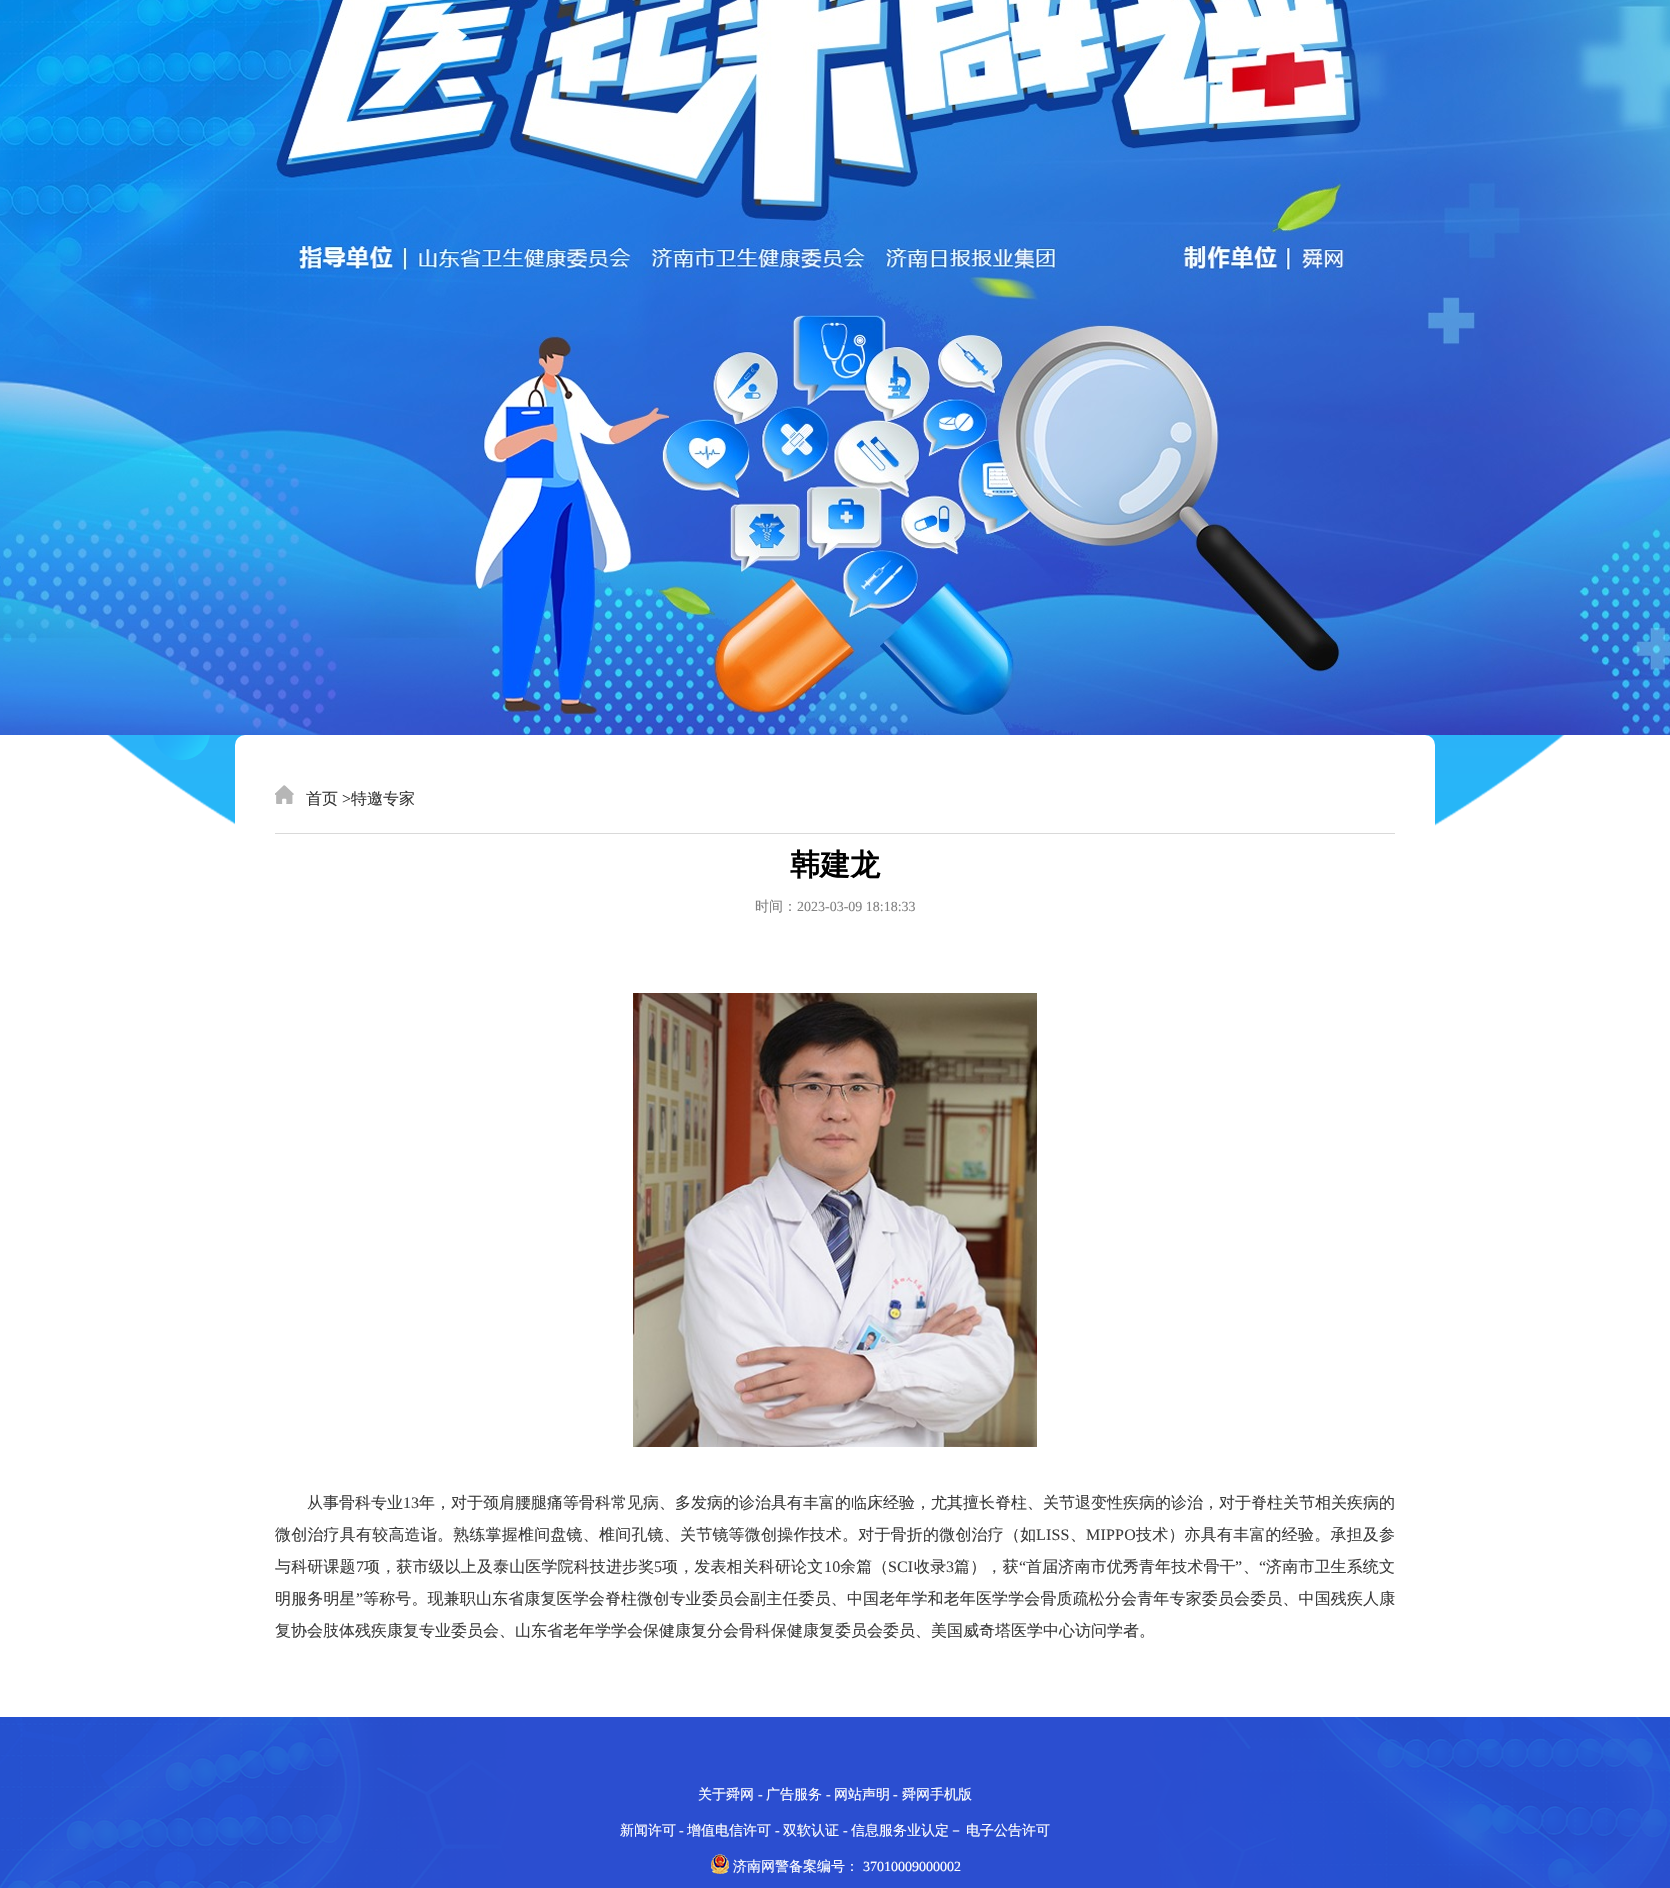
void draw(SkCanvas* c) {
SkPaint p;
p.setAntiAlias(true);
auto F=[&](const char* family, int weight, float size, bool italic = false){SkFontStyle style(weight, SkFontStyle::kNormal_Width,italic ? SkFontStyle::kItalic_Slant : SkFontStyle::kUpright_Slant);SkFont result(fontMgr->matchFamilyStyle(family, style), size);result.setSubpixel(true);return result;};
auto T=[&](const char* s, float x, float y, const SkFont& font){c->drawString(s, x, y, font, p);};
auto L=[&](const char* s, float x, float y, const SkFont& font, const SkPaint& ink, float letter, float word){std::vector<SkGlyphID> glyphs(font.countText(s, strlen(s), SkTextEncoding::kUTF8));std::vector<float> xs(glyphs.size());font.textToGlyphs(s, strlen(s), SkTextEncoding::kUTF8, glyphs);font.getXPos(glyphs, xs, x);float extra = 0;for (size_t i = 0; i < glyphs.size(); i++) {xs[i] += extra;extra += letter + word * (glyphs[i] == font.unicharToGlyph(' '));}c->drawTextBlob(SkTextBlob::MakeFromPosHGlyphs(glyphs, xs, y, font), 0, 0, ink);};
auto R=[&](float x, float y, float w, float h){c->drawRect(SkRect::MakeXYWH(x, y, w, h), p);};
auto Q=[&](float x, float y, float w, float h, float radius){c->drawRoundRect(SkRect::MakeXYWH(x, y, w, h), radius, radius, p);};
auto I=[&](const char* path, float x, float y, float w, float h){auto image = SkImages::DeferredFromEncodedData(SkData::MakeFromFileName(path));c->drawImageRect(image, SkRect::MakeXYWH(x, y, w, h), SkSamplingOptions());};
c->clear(0xffffffff);
I("1.png",0,735,1670,256);
I("2.png",0,0,1670,735);
p.setColor(0xffffffff);
Q(235,735,1200,962,10);
p.setColor(0xffd9d9d9);
R(275,833,1120,1);
I("3.png",275,785,19,19);
auto f1 = F("WenQuanYi Zen Hei",500,16);
p.setColor(0xff353535);
T("首页",306,804,f1);
auto f2 = F("Liberation Serif",400,16);
T(">",342,804,f2);
T("特邀专家",351,804,f1);
auto f3 = F("WenQuanYi Zen Hei",700,30);
p.setColor(0xff000000);
T("韩建龙",790,875,f3);
auto f4 = F("WenQuanYi Zen Hei",500,14);
p.setColor(0xff818181);
T("时间：",755,911,f4);
auto f5 = F("Liberation Serif",400,14);
T("2023-03-09 18:18:33",797,911,f5);
I("4.png",633,993,404,454);
p.setColor(0xff3d3d3d);
T("从事骨科专业",307,1508,f1);
T("13",403,1508,f2);
T("年，对于颈肩腰腿痛等骨科常见病、多发病的诊治具有丰富的临床经验，尤其擅长脊柱、关节退变性疾病的诊治，对于脊柱关节相关疾病的",419,1508,f1);
L("微创治疗具有较高造诣。熟练掌握椎间盘镜、椎间孔镜、关节镜等微创操作技术。对于骨折的微创治疗（如",275,1540,f1,p,.2,0);
L("LISS",1036,1540,f2,p,.2,0);
L("、",1070,1540,f1,p,.2,0);
L("MIPPO",1086,1540,f2,p,.2,0);
L("技术）亦具有丰富的经验。承担及参",1136,1540,f1,p,.2,0);
L("与科研课题",275,1572,f1,p,.13,0);
L("7",356,1572,f2,p,.13,0);
L("项，获市级以上及泰山医学院科技进步奖",364,1572,f1,p,.13,0);
L("5",654,1572,f2,p,.13,0);
L("项，发表相关科研论文",662,1572,f1,p,.13,0);
L("10",824,1572,f2,p,.13,0);
L("余篇（",840,1572,f1,p,.13,0);
L("SCI",888,1572,f2,p,.13,0);
L("收录",914,1572,f1,p,.13,0);
L("3",946,1572,f2,p,.13,0);
L("篇），获",954,1572,f1,p,.13,0);
L("“",1019,1572,f2,p,.13,0);
L("首届济南市优秀青年技术骨干",1026,1572,f1,p,.13,0);
L("”",1235,1572,f2,p,.13,0);
L("“",1259,1572,f2,p,.13,0);
L("济南市卫生系统文",1266,1572,f1,p,.13,0);
L("、",1243,1572,f1,p,.13,0);
L("明服务明星",275,1604,f1,p,.13,0);
L("”",356,1604,f2,p,.13,0);
L("等称号。现兼职山东省康复医学会脊柱微创专业委员会副主任委员、中国老年学和老年医学学会骨质疏松分会青年专家委员会委员、中国残疾人康",363,1604,f1,p,.13,0);
T("复协会肢体残疾康复专业委员会、山东省老年学学会保健康复分会骨科保健康复委员会委员、美国威奇塔医学中心访问学者。",275,1636,f1);
I("5.png",0,1717,1670,171);
p.setColor(0xffffffff);
T("关于舜网",698,1799,f4);
T("-",758,1799,f5);
T("广告服务",766,1799,f4);
T("-",826,1799,f5);
T("网站声明",834,1799,f4);
T("-",893,1799,f5);
T("舜网手机版",902,1799,f4);
T("新闻许可",620,1835,f4);
T("-",679,1835,f5);
T("增值电信许可",687,1835,f4);
T("-",775,1835,f5);
T("双软认证",783,1835,f4);
T("-",843,1835,f5);
T("信息服务业认定－",851,1835,f4);
T("电子公告许可",966,1835,f4);
I("6.png",711,1854,18,20);
T("济南网警备案编号：",733,1871,f4);
T("37010009000002",863,1871,f5);
}
